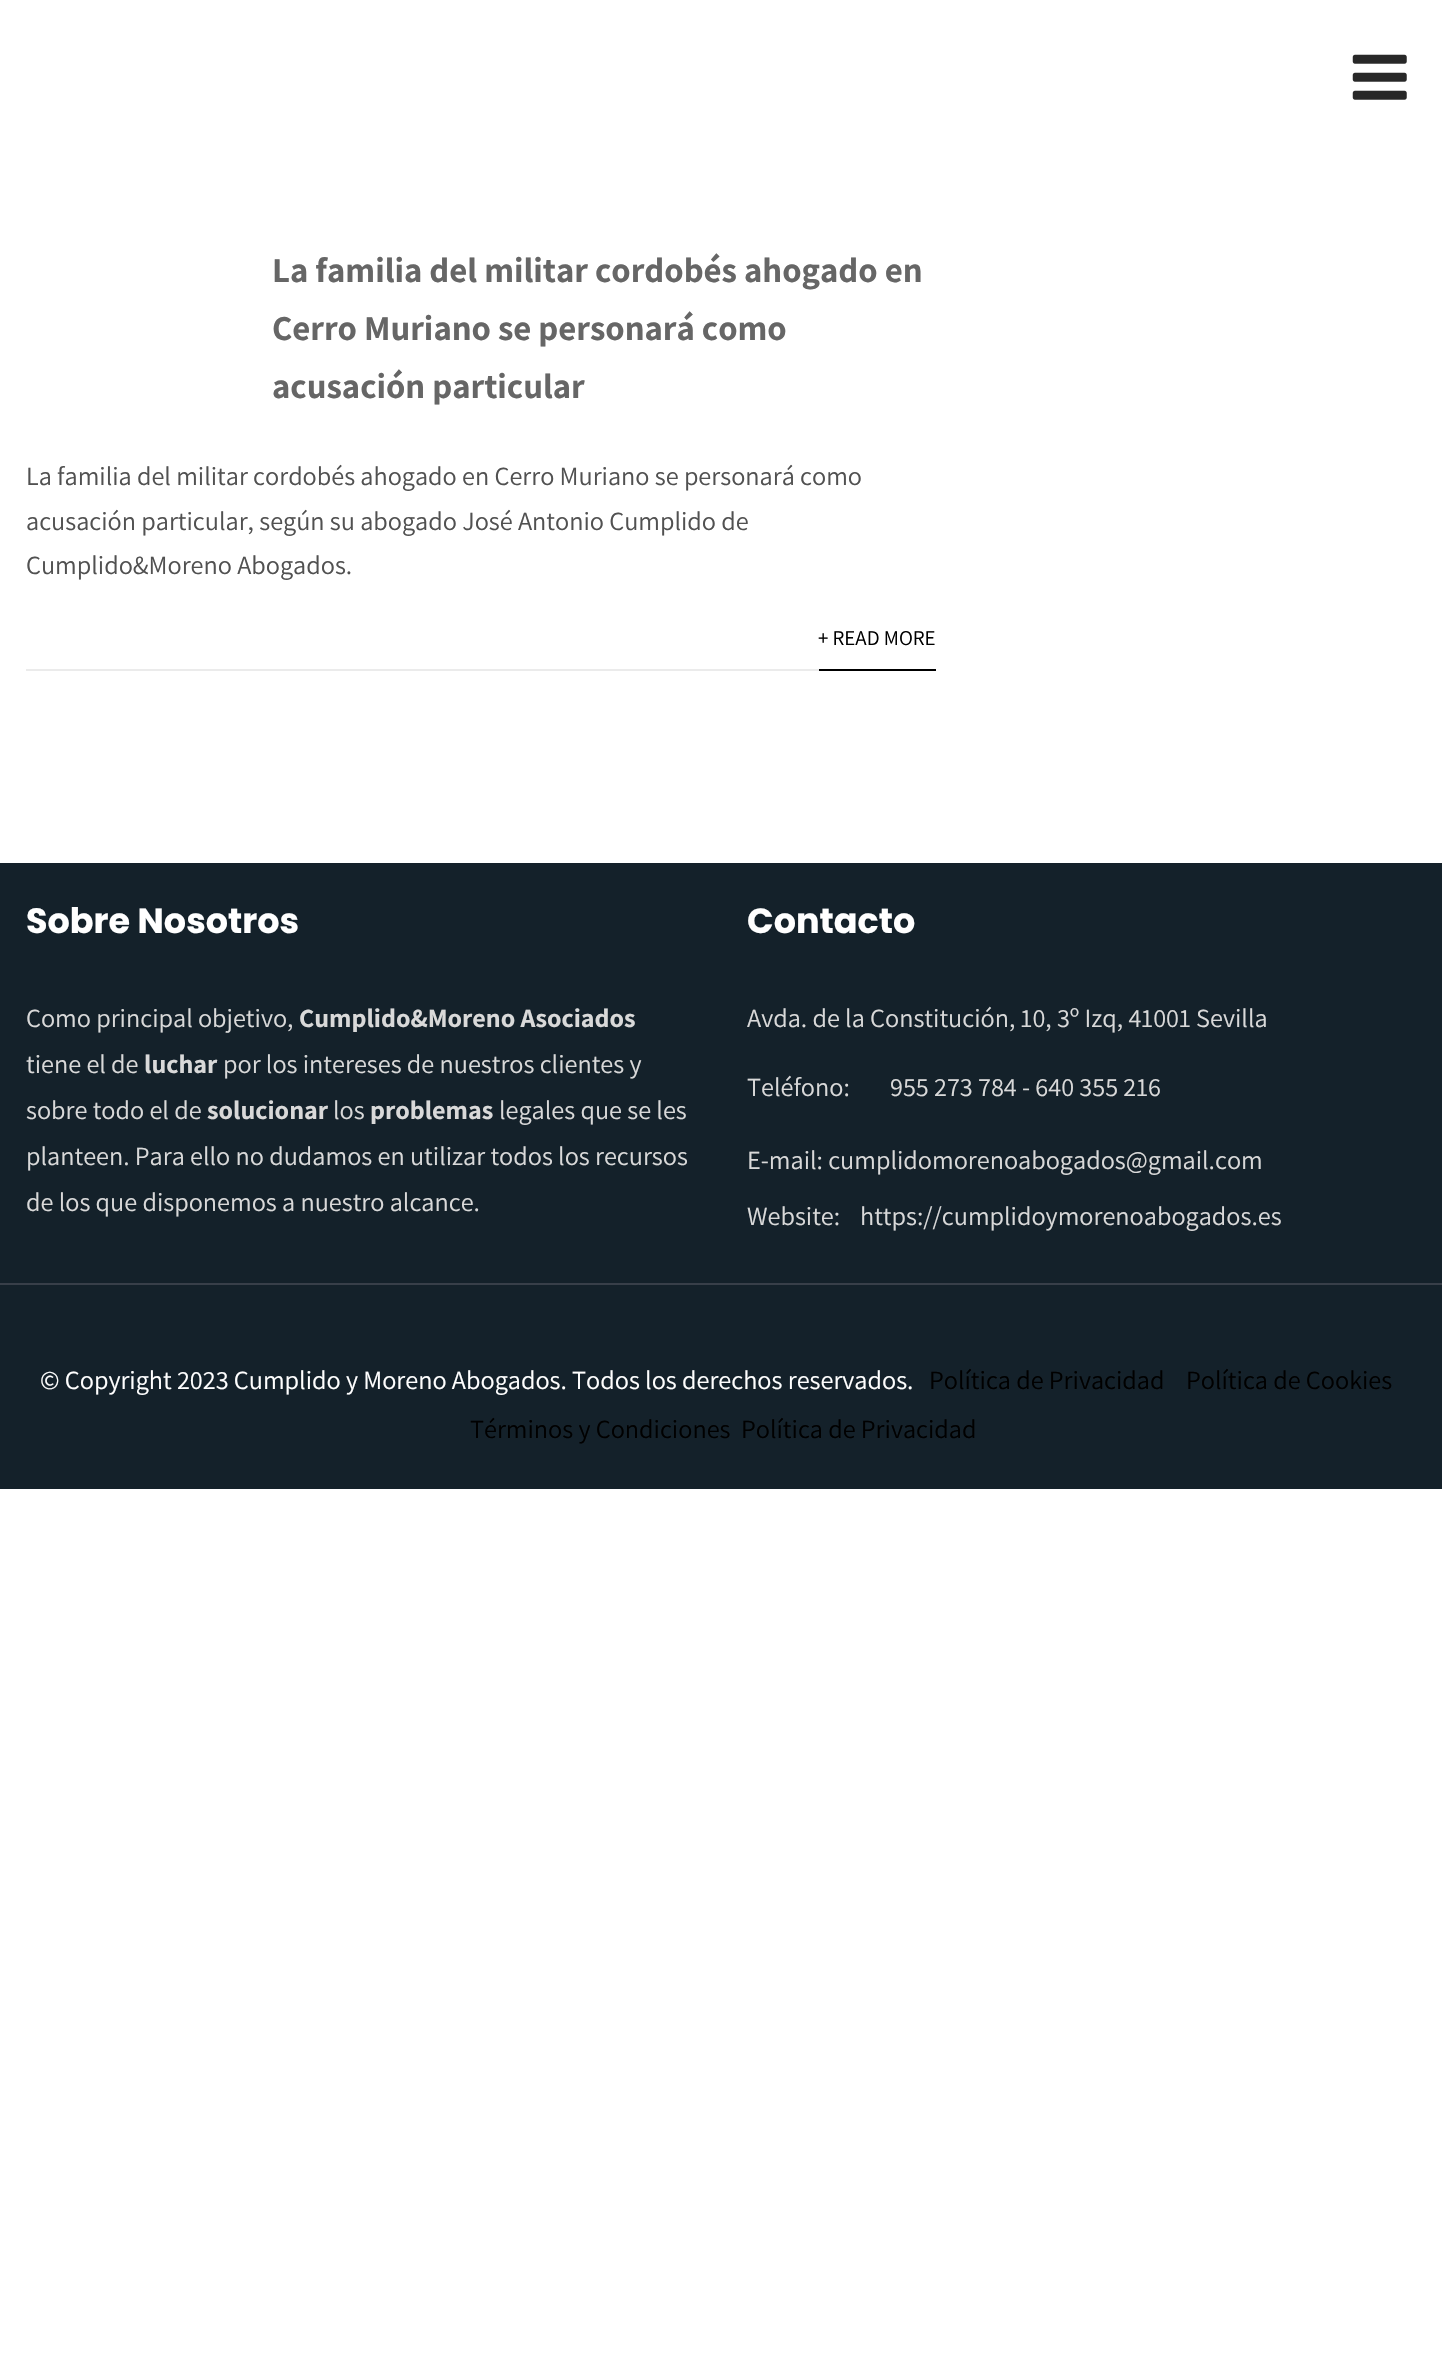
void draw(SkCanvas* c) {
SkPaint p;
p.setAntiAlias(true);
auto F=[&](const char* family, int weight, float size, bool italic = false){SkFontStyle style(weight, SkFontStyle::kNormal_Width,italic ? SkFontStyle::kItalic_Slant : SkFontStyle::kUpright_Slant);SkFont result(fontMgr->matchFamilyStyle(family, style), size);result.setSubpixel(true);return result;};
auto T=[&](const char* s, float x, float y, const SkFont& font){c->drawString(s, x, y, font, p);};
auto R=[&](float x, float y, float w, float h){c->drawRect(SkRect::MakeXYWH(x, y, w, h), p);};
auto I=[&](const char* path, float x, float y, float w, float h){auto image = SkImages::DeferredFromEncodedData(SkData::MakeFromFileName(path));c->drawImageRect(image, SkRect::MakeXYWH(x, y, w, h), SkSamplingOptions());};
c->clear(0xffffffff);
I("1.png",1352,54,55,46);
auto f1 = F("Assistant",700,35);
p.setColor(0xff666666);
T("La familia del militar cordobés ahogado en",272,282,f1);
T("Cerro Muriano se personará como",272,340,f1);
T("acusación particular",272,398,f1);
auto f2 = F("Assistant",400,26.25);
p.setColor(0xff515151);
T("La familia del militar cordobés ahogado en Cerro Muriano se personará como",26,485,f2);
T("acusación particular, según su abogado José Antonio Cumplido de",26,530,f2);
T("Cumplido&Moreno Abogados.",26,574,f2);
p.setColor(0xffebebeb);
R(26,669,793,2);
auto f3 = F("Assistant",400,21);
p.setColor(0xff000000);
T("+ READ MORE",818,645,f3);
R(819,669,117,2);
p.setColor(0xff14212a);
R(0,863,1442,420);
auto f4 = F("Poppins",700,35);
p.setColor(0xffffffff);
T("Sobre Nosotros",26,933,f4);
p.setColor(0xffd9d9d9);
T("Como principal objetivo,",26,1027,f2);
auto f5 = F("Assistant",700,26.25);
T("Cumplido&Moreno Asociados",299,1027,f5);
T("tiene el de",26,1073,f2);
T("luchar",144,1073,f5);
T("por los intereses de nuestros clientes y",223,1073,f2);
T("sobre todo el de",26,1119,f2);
T("solucionar",207,1119,f5);
T("los",333,1119,f2);
T("problemas",370,1119,f5);
T("legales que se les",499,1119,f2);
T("planteen. Para ello no dudamos en utilizar todos los recursos",26,1165,f2);
T("de los que disponemos a nuestro alcance.",26,1211,f2);
p.setColor(0xffffffff);
T("Contacto",747,933,f4);
p.setColor(0xffd9d9d9);
T("Avda. de la Constitución, 10, 3º Izq, 41001 Sevilla",747,1027,f2);
T("Teléfono:",747,1096,f2);
T("955 273 784 - 640 355 216",890,1096,f2);
T("E-mail: cumplidomorenoabogados@gmail.com",747,1169,f2);
T("Website:",747,1225,f2);
T("https://cumplidoymorenoabogados.es",860,1225,f2);
p.setColor(0xff14212a);
R(0,1285,1442,204);
p.setColor(0xff383f49);
R(0,1283,1442,2);
p.setColor(0xffffffff);
T("© Copyright 2023 Cumplido y Moreno Abogados. Todos los derechos reservados.",40,1389,f2);
p.setColor(0xff000000);
T("Política de Privacidad",929,1389,f2);
T("Política de Cookies",1186,1389,f2);
T("Términos y Condiciones",470,1438,f2);
T("Política de Privacidad",741,1438,f2);
}
